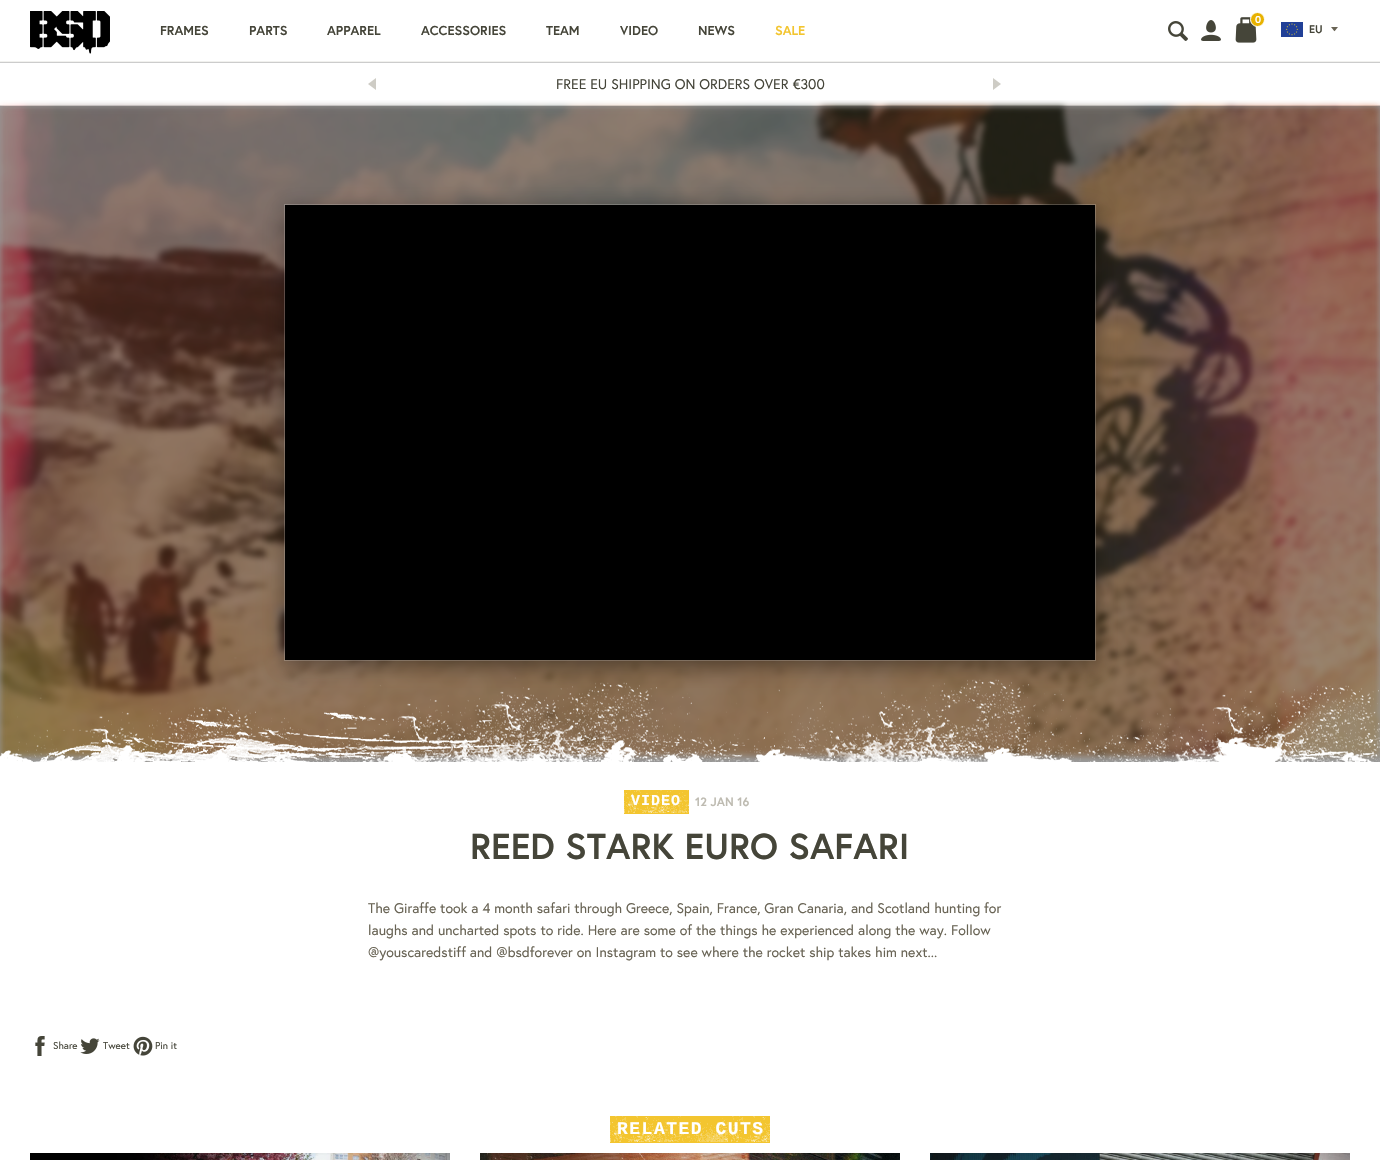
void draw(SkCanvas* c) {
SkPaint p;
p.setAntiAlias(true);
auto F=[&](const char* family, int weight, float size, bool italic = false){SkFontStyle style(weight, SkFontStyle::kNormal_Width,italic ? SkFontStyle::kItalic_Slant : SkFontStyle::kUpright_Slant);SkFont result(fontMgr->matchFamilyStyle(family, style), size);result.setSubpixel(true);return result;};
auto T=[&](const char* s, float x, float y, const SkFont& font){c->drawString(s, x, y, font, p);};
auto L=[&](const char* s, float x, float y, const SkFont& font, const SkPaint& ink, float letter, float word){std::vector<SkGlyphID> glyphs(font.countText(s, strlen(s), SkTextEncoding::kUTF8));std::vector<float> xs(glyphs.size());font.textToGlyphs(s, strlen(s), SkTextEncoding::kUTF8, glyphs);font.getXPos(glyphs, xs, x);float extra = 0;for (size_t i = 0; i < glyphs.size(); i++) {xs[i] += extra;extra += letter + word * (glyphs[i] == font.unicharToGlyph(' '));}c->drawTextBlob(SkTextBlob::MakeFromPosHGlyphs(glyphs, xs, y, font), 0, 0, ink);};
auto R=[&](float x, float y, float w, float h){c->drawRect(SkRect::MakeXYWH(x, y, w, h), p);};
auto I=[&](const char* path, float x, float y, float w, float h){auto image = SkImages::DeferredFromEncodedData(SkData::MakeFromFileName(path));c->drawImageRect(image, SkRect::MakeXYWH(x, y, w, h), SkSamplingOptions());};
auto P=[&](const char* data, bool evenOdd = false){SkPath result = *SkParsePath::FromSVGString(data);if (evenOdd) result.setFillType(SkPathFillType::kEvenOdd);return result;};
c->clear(0xffffffff);
p.setColor(0xff999999);
R(0,106,1380,656);
p.setColor(0xfff1f1ee);
R(0,61,1380,1);
I("1.png",30,11,80,43);
auto f1 = F("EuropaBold",700,13);
p.setColor(0xff454539);
T("FRAMES",160,35,f1);
T("PARTS",249,35,f1);
T("APPAREL",327,35,f1);
T("ACCESSORIES",421,35,f1);
T("TEAM",546,35,f1);
T("VIDEO",620,35,f1);
T("NEWS",698,35,f1);
p.setColor(0xfff3c52f);
T("SALE",775,35,f1);
I("2.png",1168,21,20,20);
I("3.png",1201,20,20,21);
I("4.png",1235,17,22,26);
p.setColor(0xffe8b200);
c->drawCircle(1257.5,19.5,7,p);
p.setStroke(true);
p.setStrokeWidth(1);
p.setColor(0xffffffff);
c->drawCircle(1257.5,19.5,7,p);
auto f2 = F("EuropaBold",700,10);
p.setStroke(false);
T("0",1255,23,f2);
p.setColor(0xff696455);
c->drawPath(P("M1331 27c4.5 5.5 2.5 5.5 7 0z"),p);
I("5.png",1281,22,22,15);
auto f3 = F("EuropaBold",700,11);
p.setColor(0xff454539);
T("EU",1309,33,f3);
p.setColor(0xffcccccc);
R(0,62,1380,1);
R(0,105,1380,1);
p.setColor(0xffceccc5);
c->drawPath(P("M376 78v12l-8-6z"),p);
auto f4 = F("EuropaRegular",400,14);
p.setColor(0xff454539);
T("FREE EU SHIPPING ON ORDERS OVER €300",556,89,f4);
p.setColor(0xffceccc5);
c->drawPath(P("M993 90v-12l8 6z"),p);
I("6.png",0,100,1380,662);
I("7.png",0,657,1380,105);
p.setColor(0xff000000);
R(285,205,810,455);
c->save();
c->clipPath(P("M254 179h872v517h-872zm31 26h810v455h-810z",true),true);
p.setColor(0x66000000);
p.setMaskFilter(SkMaskFilter::MakeBlur(kNormal_SkBlurStyle, 10));
c->drawRect(SkRect::MakeXYWH(285,210,810,455),p);
p.setMaskFilter(nullptr);
c->restore();
p.setStroke(true);
p.setColor(0x33ffffff);
c->drawRect(SkRect::MakeXYWH(284.5,204.5,811,456),p);
p.setStroke(false);
p.setColor(0xfff3c52f);
R(624,790,65,24);
I("8.png",624,790,65,23);
auto f5 = F("Liberation Mono",700,15);
p.setColor(0xffffffff);
L("VIDEO",631,805,f5,p,1,0);
auto f6 = F("EuropaBold",700,12);
p.setColor(0xffbebbb1);
T("12 JAN 16",695,806,f6);
auto f7 = F("EuropaBold",700,36);
p.setColor(0xff454539);
T("REED STARK EURO SAFARI",470,859,f7);
p.setColor(0xff696455);
T("The Giraffe took a 4 month safari through Greece, Spain, France, Gran Canaria, and Scotland hunting for",368,913,f4);
T("laughs and uncharted spots to ride. Here are some of the things he experienced along the way. Follow",368,935,f4);
T("@youscaredstiff and @bsdforever on Instagram to see where the rocket ship takes him next...",368,957,f4);
I("9.png",35,1036,10,20);
auto f8 = F("EuropaRegular",400,10);
p.setColor(0xff454539);
T("Share",53,1049,f8);
I("10.png",80,1038,20,16);
T("Tweet",103,1049,f8);
I("11.png",133,1036,20,20);
T("Pin it",155,1049,f8);
p.setColor(0xfff3c52f);
R(610,1116,160,27);
I("12.png",610,1116,160,26);
auto f9 = F("Liberation Mono",700,18);
p.setColor(0xffffffff);
L("RELATED CUTS",617,1134,f9,p,1.5,0);
I("13.png",30,1153,420,7);
I("14.png",480,1153,420,7);
I("15.png",930,1153,420,7);
}
